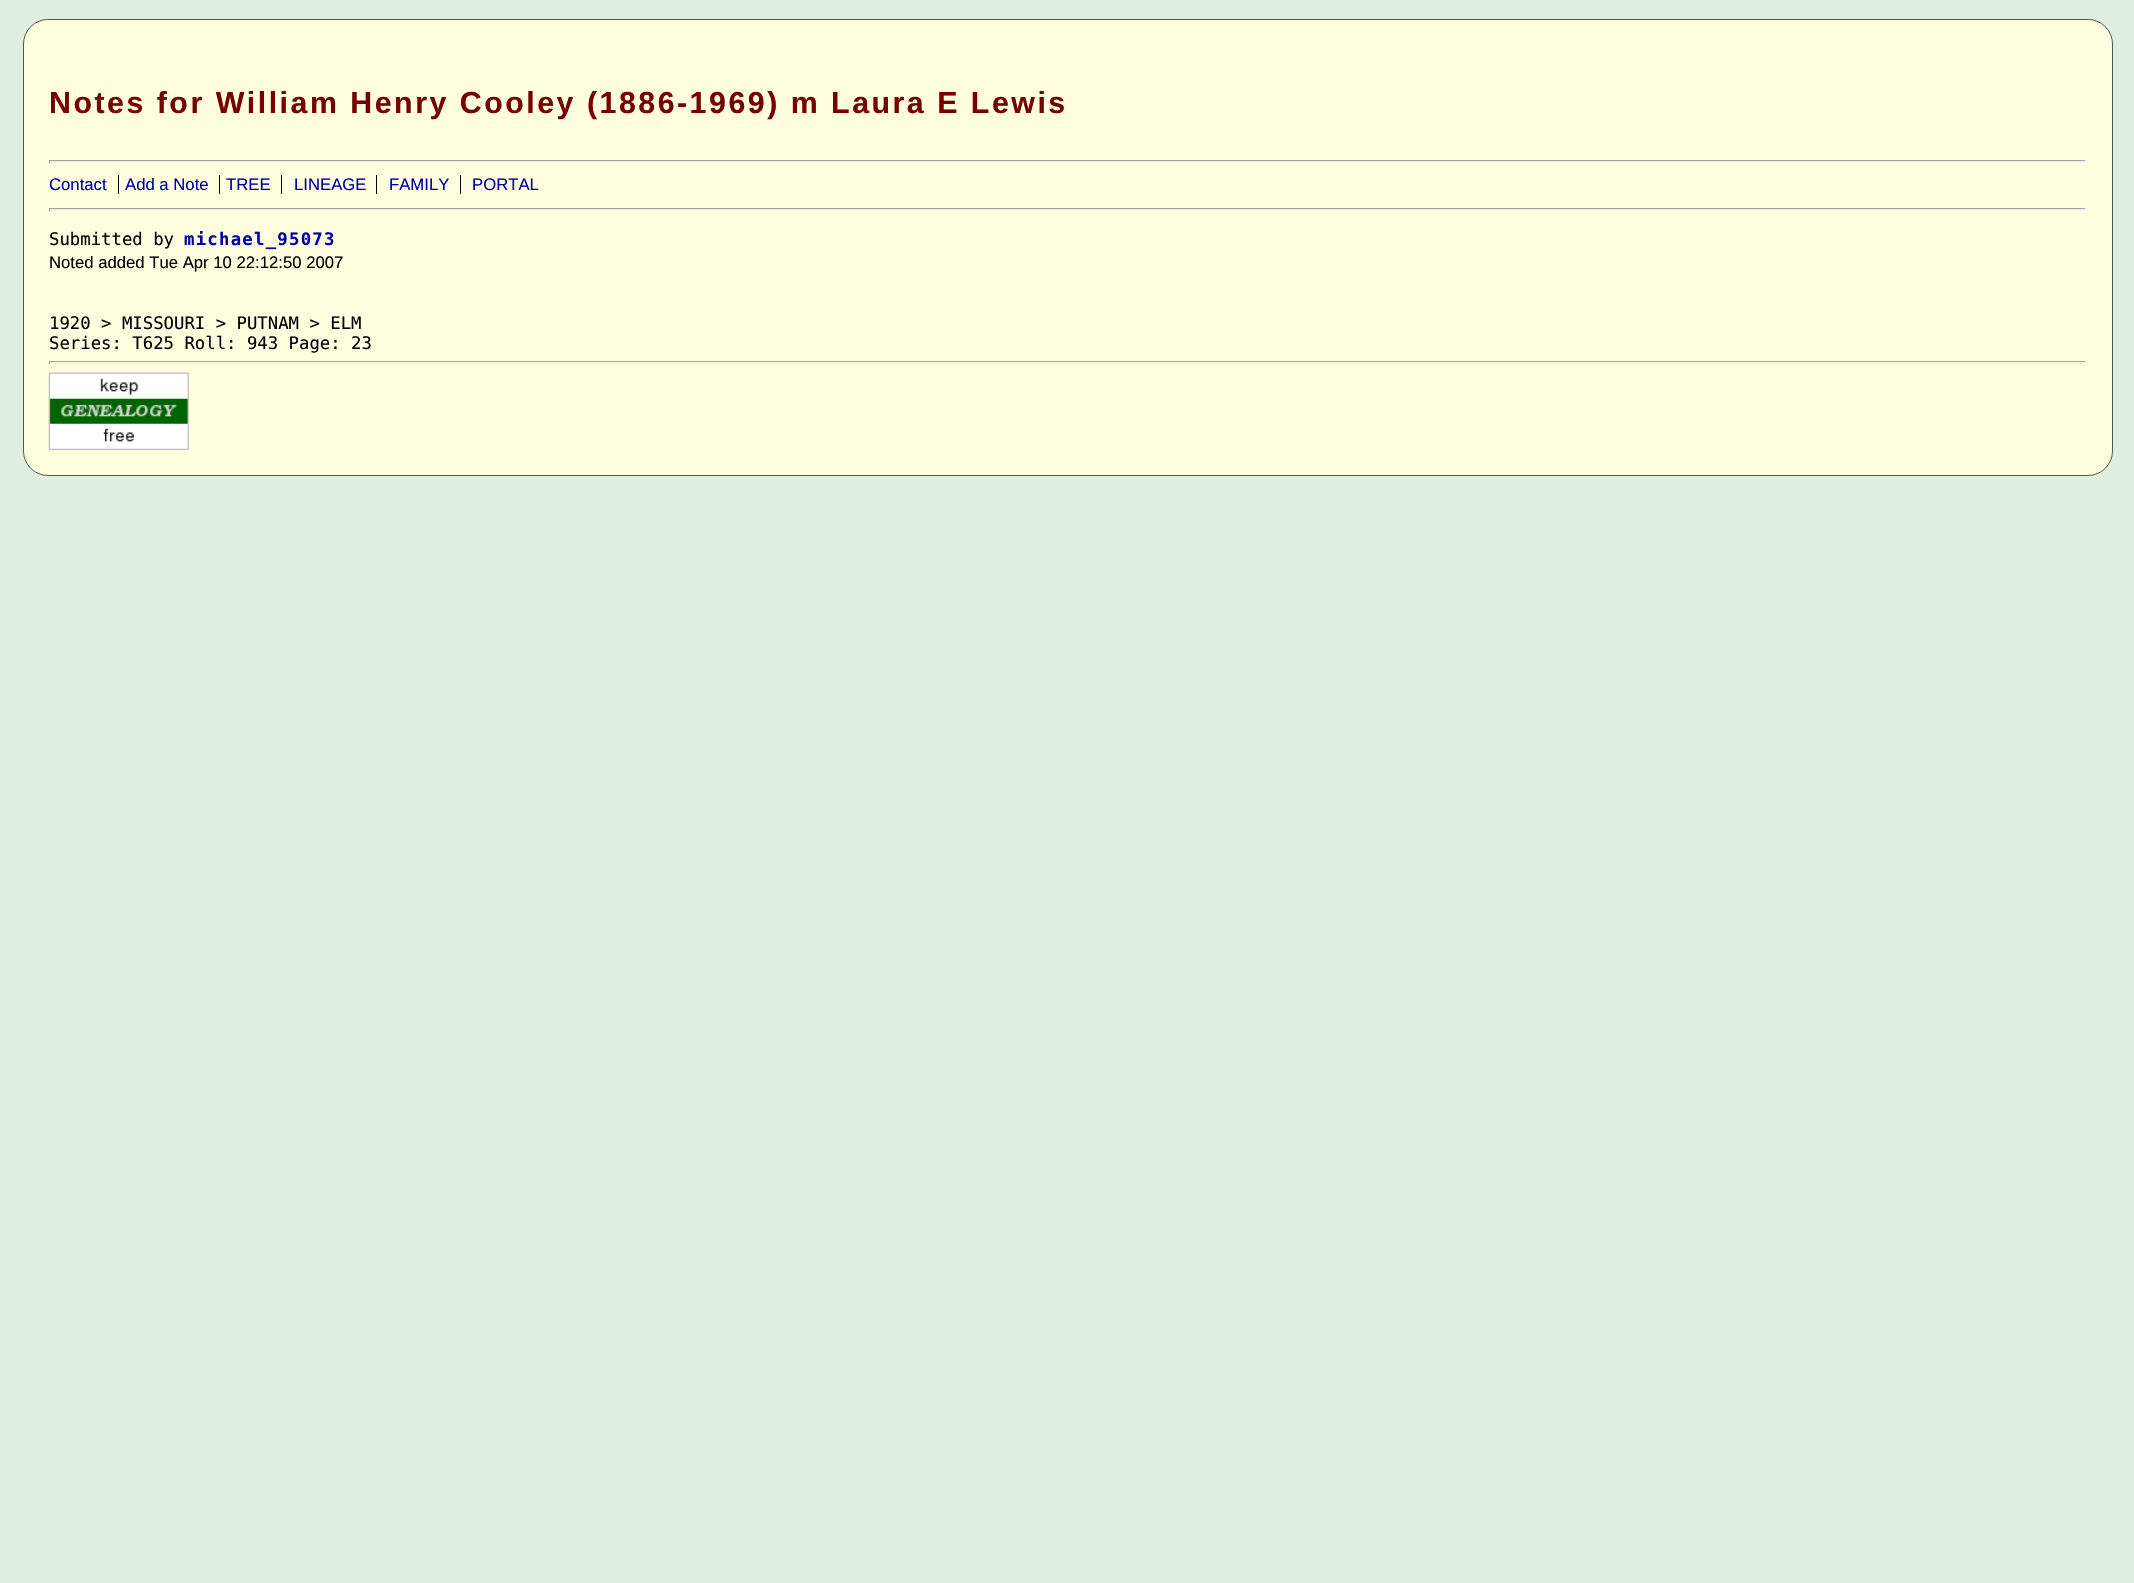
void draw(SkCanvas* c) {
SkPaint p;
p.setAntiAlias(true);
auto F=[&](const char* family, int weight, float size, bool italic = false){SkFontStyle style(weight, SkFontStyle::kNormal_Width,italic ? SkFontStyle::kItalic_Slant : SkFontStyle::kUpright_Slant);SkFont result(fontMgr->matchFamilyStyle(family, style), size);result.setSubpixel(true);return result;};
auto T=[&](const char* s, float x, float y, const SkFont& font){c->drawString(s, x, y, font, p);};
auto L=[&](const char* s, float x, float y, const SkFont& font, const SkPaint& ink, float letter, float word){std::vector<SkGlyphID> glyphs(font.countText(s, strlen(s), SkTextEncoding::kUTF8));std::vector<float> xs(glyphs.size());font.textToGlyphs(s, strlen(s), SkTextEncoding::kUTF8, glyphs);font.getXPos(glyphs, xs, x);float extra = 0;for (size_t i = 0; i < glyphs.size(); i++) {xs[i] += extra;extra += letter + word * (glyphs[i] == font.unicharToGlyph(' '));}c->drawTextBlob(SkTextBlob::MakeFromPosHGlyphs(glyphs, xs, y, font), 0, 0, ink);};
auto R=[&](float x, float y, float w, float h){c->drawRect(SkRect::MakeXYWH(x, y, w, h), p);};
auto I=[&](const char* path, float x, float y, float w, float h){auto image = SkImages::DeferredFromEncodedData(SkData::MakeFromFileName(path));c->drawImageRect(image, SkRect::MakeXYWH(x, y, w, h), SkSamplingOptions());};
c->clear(0xffdfefdf);
p.setColor(0xffffffe0);
c->drawRoundRect(SkRect::MakeXYWH(23.5,19.5,2089,456),24.5,24.5,p);
p.setStroke(true);
p.setStrokeWidth(1);
p.setColor(0xff555555);
c->drawRoundRect(SkRect::MakeXYWH(23.5,19.5,2089,456),24.5,24.5,p);
auto f1 = F("Liberation Sans",700,30.35);
p.setStroke(false);
p.setColor(0xff770000);
L("Notes for William Henry Cooley (1886-1969) m Laura E Lewis",49,113,f1,p,2.5,0);
p.setColor(0xff9f9f9f);
R(49,160,2037,1);
p.setColor(0xffeeeeee);
R(2085,160,1,3);
R(49,161,2037,1);
p.setColor(0xff9f9f9f);
R(49,160,1,3);
auto f2 = F("Liberation Sans",400,16.7);
p.setColor(0xff0000aa);
T("Contact",49,190,f2);
T("Add a Note",125,190,f2);
p.setColor(0xff000000);
R(118,175,1,19);
p.setColor(0xff0000aa);
T("TREE",226,190,f2);
p.setColor(0xff000000);
R(219,175,1,19);
R(281,175,1,19);
p.setColor(0xff0000aa);
T("LINEAGE",294,190,f2);
p.setColor(0xff000000);
R(376,175,1,19);
p.setColor(0xff0000aa);
T("FAMILY",389,190,f2);
p.setColor(0xff000000);
R(460,175,1,19);
p.setColor(0xff0000aa);
T("PORTAL",472,190,f2);
p.setColor(0xff9f9f9f);
R(49,208,2037,1);
p.setColor(0xffeeeeee);
R(2085,208,1,3);
R(49,209,2037,1);
p.setColor(0xff9f9f9f);
R(49,208,1,3);
auto f3 = F("DejaVu Sans Mono",400,17.3);
p.setColor(0xff000000);
T("Submitted by",49,245,f3);
auto f4 = F("DejaVu Sans Mono",700,17.3);
p.setColor(0xff0000aa);
L("michael_95073",184,245,f4,p,1.25,0);
p.setColor(0xff000000);
T("Noted added Tue Apr 10 22:12:50 2007",49,268,f2);
T("1920 > MISSOURI > PUTNAM > ELM",49,329,f3);
T("Series: T625 Roll: 943 Page: 23",49,349,f3);
p.setColor(0xff9f9f9f);
R(49,361,2037,1);
p.setColor(0xffeeeeee);
R(2085,361,1,3);
R(49,363,2037,1);
p.setColor(0xff9f9f9f);
R(49,361,1,3);
I("1.png",48,372,141,78);
}
